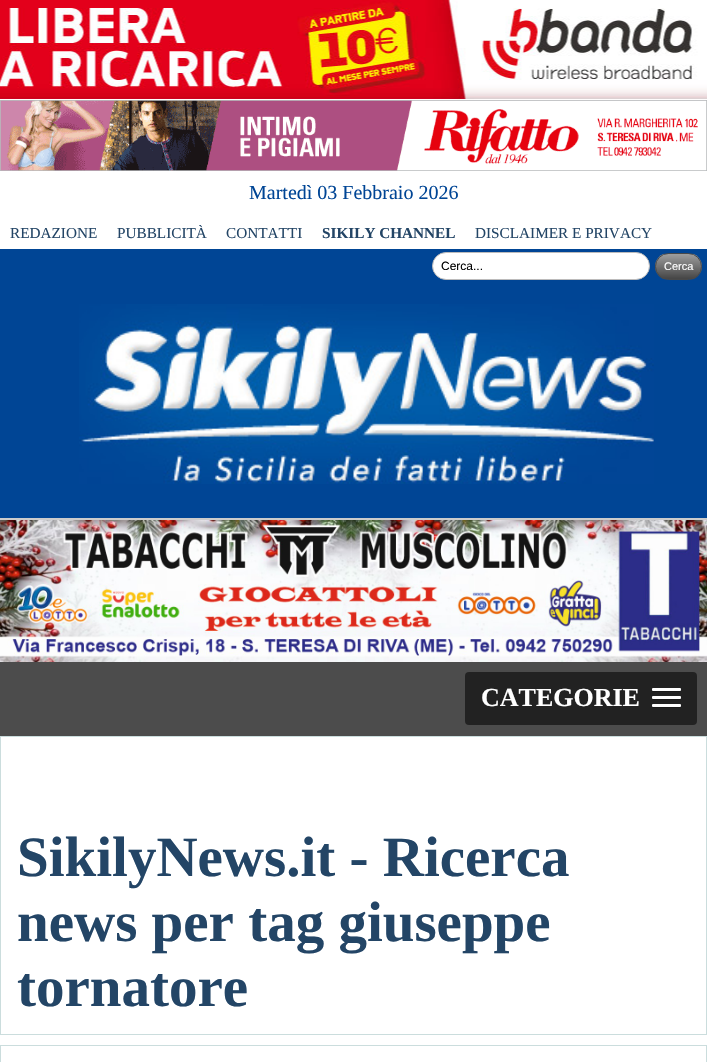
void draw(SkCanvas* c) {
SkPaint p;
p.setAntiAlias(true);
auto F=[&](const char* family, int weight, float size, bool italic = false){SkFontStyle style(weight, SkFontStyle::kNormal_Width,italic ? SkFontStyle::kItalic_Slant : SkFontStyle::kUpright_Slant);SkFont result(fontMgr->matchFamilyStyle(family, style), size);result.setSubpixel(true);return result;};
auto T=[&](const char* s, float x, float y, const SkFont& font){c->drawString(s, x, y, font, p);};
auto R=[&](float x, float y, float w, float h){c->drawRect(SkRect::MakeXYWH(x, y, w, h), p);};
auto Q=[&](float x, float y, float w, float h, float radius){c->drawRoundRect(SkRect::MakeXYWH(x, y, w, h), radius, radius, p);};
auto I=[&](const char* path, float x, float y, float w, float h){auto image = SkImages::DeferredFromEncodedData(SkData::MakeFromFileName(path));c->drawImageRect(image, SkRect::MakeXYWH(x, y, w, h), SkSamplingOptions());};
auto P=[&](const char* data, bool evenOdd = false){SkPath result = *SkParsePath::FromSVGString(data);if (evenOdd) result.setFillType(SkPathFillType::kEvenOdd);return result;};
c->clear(0xffffffff);
I("1.png",0,0,707,100);
I("2.png",0,100,707,71);
auto f1 = F("Liberation Serif",400,20);
p.setColor(0xff004595);
T("Martedì 03 Febbraio 2026",249,199,f1);
R(0,249,707,269);
auto f2 = F("Liberation Serif",400,15.25);
p.setColor(0xff234566);
T("REDAZIONE",10,238,f2);
T("PUBBLICITÀ",117,238,f2);
T("CONTATTI",226,238,f2);
auto f3 = F("Liberation Serif",700,15.25);
T("SIKILY CHANNEL",322,238,f3);
T("DISCLAIMER E PRIVACY",475,238,f2);
p.setColor(0xffffffff);
c->drawRoundRect(SkRect::MakeXYWH(432.5,252.5,217,27),13.5,13.5,p);
p.setStroke(true);
p.setStrokeWidth(1);
p.setColor(0xffbcbbbb);
c->drawRoundRect(SkRect::MakeXYWH(432.5,252.5,217,27),13.5,13.5,p);
auto f4 = F("Liberation Sans",400,12);
p.setStroke(false);
p.setColor(0xff000000);
T("Cerca...",441,270,f4);
c->save();
c->clipPath(P("M668.5 253h20c7.5 0 13.5 6 13.5 13.5c0 7.5-6 13.5-13.5 13.5h-20c-7.5 0-13.5-6-13.5-13.5c0-7.5 6-13.5 13.5-13.5z"),true);
{
const SkColor colors[] = {0xff9e9e9e,0xff454545};
const float stops[] = {0,1};
const SkPoint ends[] = {{656,254}, {656,279}};
p.setShader(SkGradientShader::MakeLinear(ends, colors, stops, 2, SkTileMode::kClamp));
p.setAlpha(255);
}
R(655,254,47,25);
c->restore();
p.setStroke(true);
p.setShader(nullptr);
p.setColor(0xff494949);
c->drawRoundRect(SkRect::MakeXYWH(655.5,253.5,46,26),13,13,p);
auto f5 = F("Liberation Sans",400,11);
p.setStroke(false);
p.setColor(0xffffffff);
T("Cerca",664,270,f5);
I("3.png",79,304,575,180);
p.setColor(0xffcccccc);
R(0,518,707,2);
I("4.png",0,520,707,142);
p.setColor(0xff4c4c4c);
R(0,662,707,74);
p.setColor(0xff222222);
Q(465,672,232,53,4);
auto f6 = F("Liberation Serif",700,26);
p.setColor(0xffffffff);
T("CATEGORIE",481,706,f6);
p.setColor(0xff1a1a1a);
c->drawPath(P("M652 690c0 3 2 2 5.5 2h18c3.5 0 5.5 1 5.5-2l-.5 1h-28z"),p);
p.setColor(0xffffffff);
Q(652,688,29,3,1);
p.setColor(0xff1a1a1a);
c->drawPath(P("M652 698c0 3 2 2 5.5 2h18c3.5 0 5.5 1 5.5-2l-.5 1h-28z"),p);
p.setColor(0xffffffff);
Q(652,696,29,3,1);
p.setColor(0xff1a1a1a);
c->drawPath(P("M652 706c0 3 2 2 5.5 2h18c3.5 0 5.5 1 5.5-2l-.5 1h-28z"),p);
p.setColor(0xffffffff);
Q(652,704,29,3,1);
p.setStroke(true);
p.setColor(0xffcbdddd);
c->drawRect(SkRect::MakeXYWH(.5,736.5,706,298),p);
auto f7 = F("Liberation Serif",700,57);
p.setStroke(false);
p.setColor(0xff234566);
T("SikilyNews.it - Ricerca",17,876,f7);
T("news per tag giuseppe",17,941,f7);
T("tornatore",17,1006,f7);
p.setStroke(true);
p.setColor(0xffcbdddd);
c->drawRect(SkRect::MakeXYWH(.5,1045.5,706,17),p);
}
